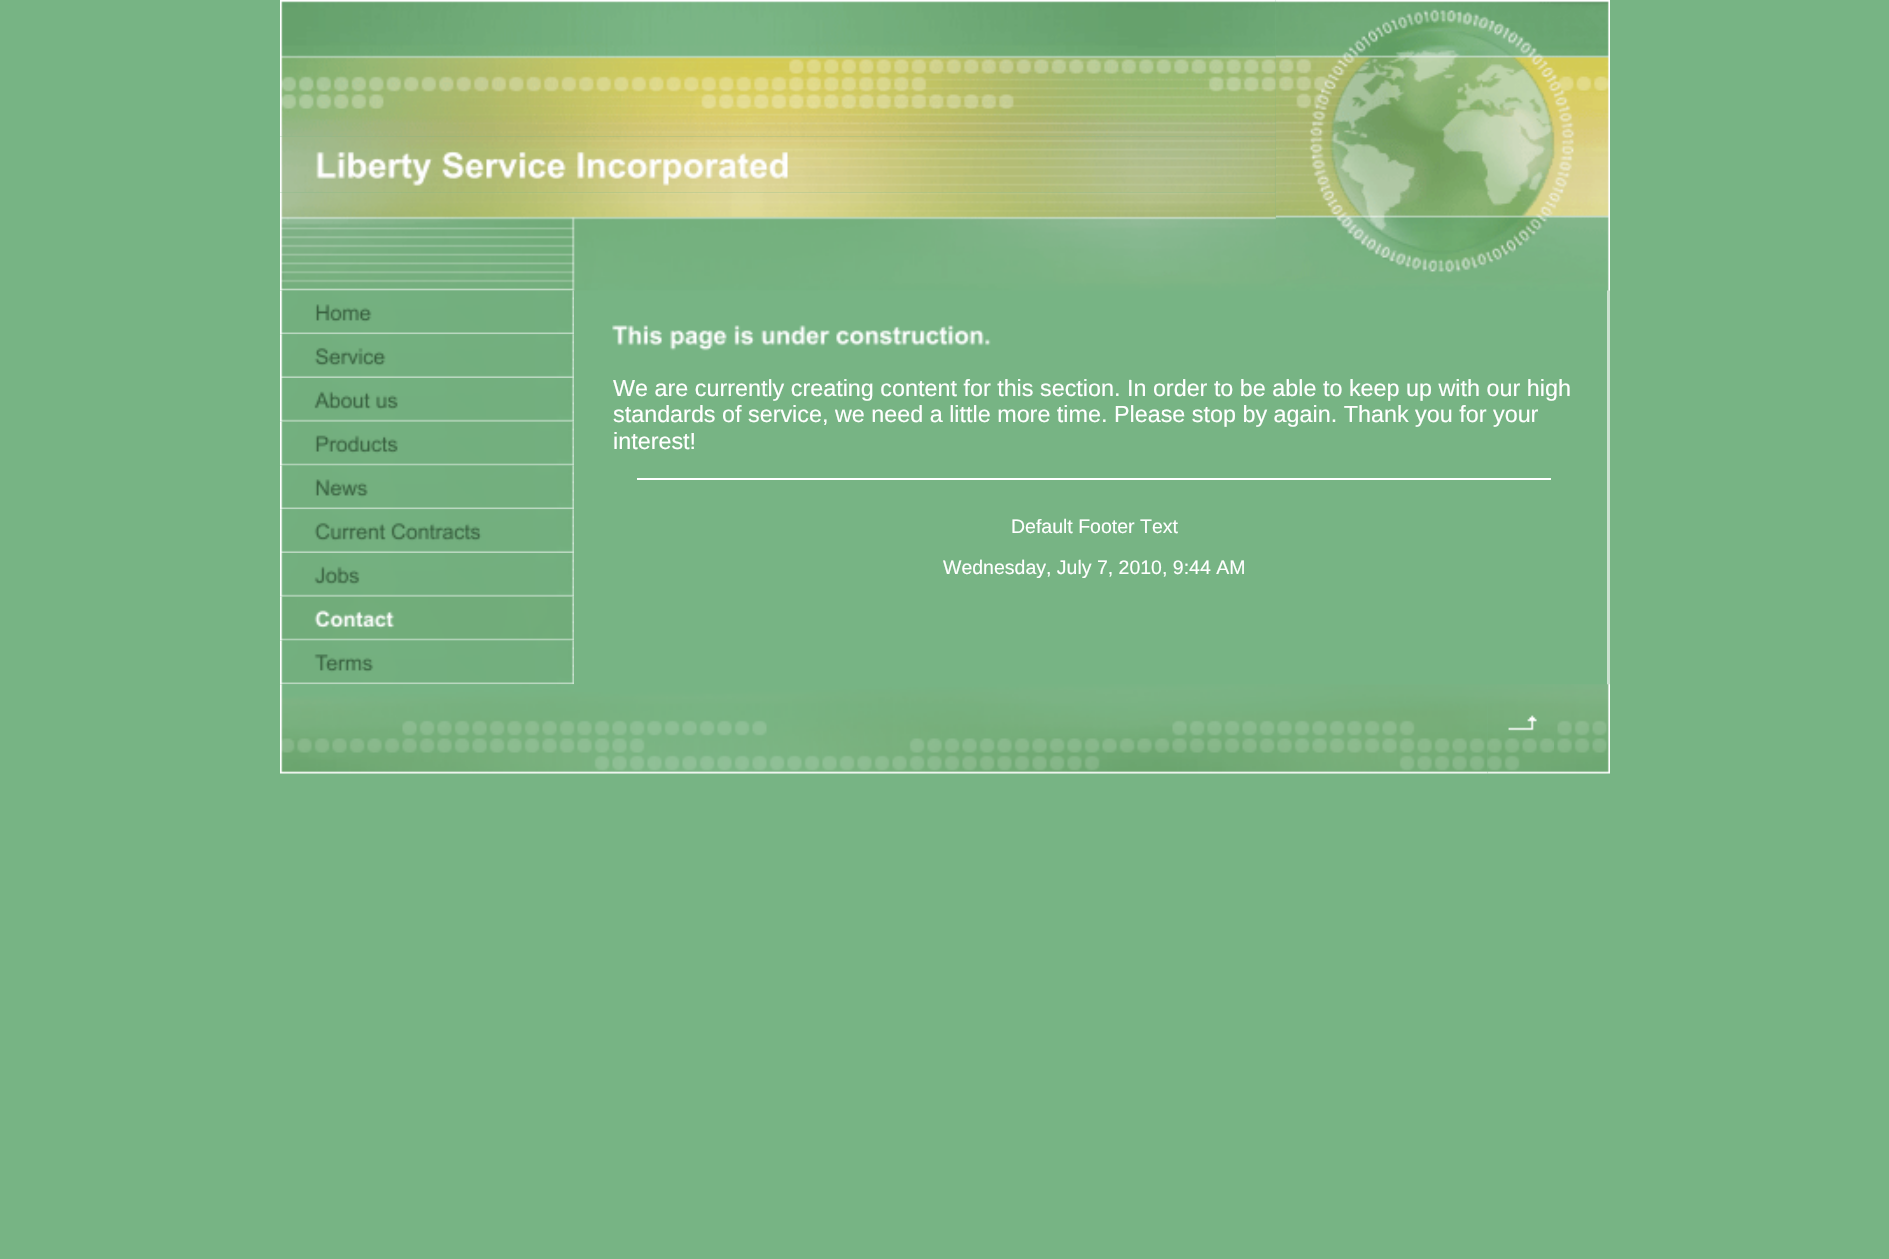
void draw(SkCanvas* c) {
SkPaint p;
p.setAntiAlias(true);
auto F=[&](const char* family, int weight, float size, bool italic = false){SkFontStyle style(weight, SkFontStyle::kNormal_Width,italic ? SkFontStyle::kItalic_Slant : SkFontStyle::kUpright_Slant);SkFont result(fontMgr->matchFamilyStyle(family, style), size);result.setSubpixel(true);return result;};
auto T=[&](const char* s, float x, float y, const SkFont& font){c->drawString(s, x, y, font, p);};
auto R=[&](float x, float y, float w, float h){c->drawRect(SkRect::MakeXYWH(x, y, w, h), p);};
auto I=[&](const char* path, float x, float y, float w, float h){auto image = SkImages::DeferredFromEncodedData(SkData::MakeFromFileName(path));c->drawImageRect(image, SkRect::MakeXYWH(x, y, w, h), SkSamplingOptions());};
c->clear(0xff77b484);
I("1.png",280,0,996,137);
p.setColor(0xffcce2d0);
R(1607,290,3,395);
I("2.png",1275,0,335,291);
I("3.png",280,136,996,57);
I("4.png",280,192,996,99);
I("5.png",280,290,294,45);
I("6.png",280,334,294,44);
I("7.png",280,378,294,44);
I("8.png",280,421,294,45);
I("9.png",280,465,294,45);
I("10.png",280,509,294,44);
I("11.png",280,553,294,44);
I("12.png",280,596,294,45);
I("13.png",280,640,294,45);
I("14.png",612,325,379,26);
auto f1 = F("Liberation Sans",400,23.35);
p.setColor(0xffffffff);
T("We are currently creating content for this section. In order to be able to keep up with our high",613,396,f1);
T("standards of service, we need a little more time. Please stop by again. Thank you for your",613,422,f1);
T("interest!",613,449,f1);
R(637,478,914,2);
auto f2 = F("Liberation Sans",400,19.5);
T("Default Footer Text",1011,533,f2);
T("Wednesday, July 7, 2010, 9:44 AM",943,574,f2);
I("15.png",280,684,1208,90);
I("16.png",1487,684,67,90);
I("17.png",1554,684,56,90);
}
